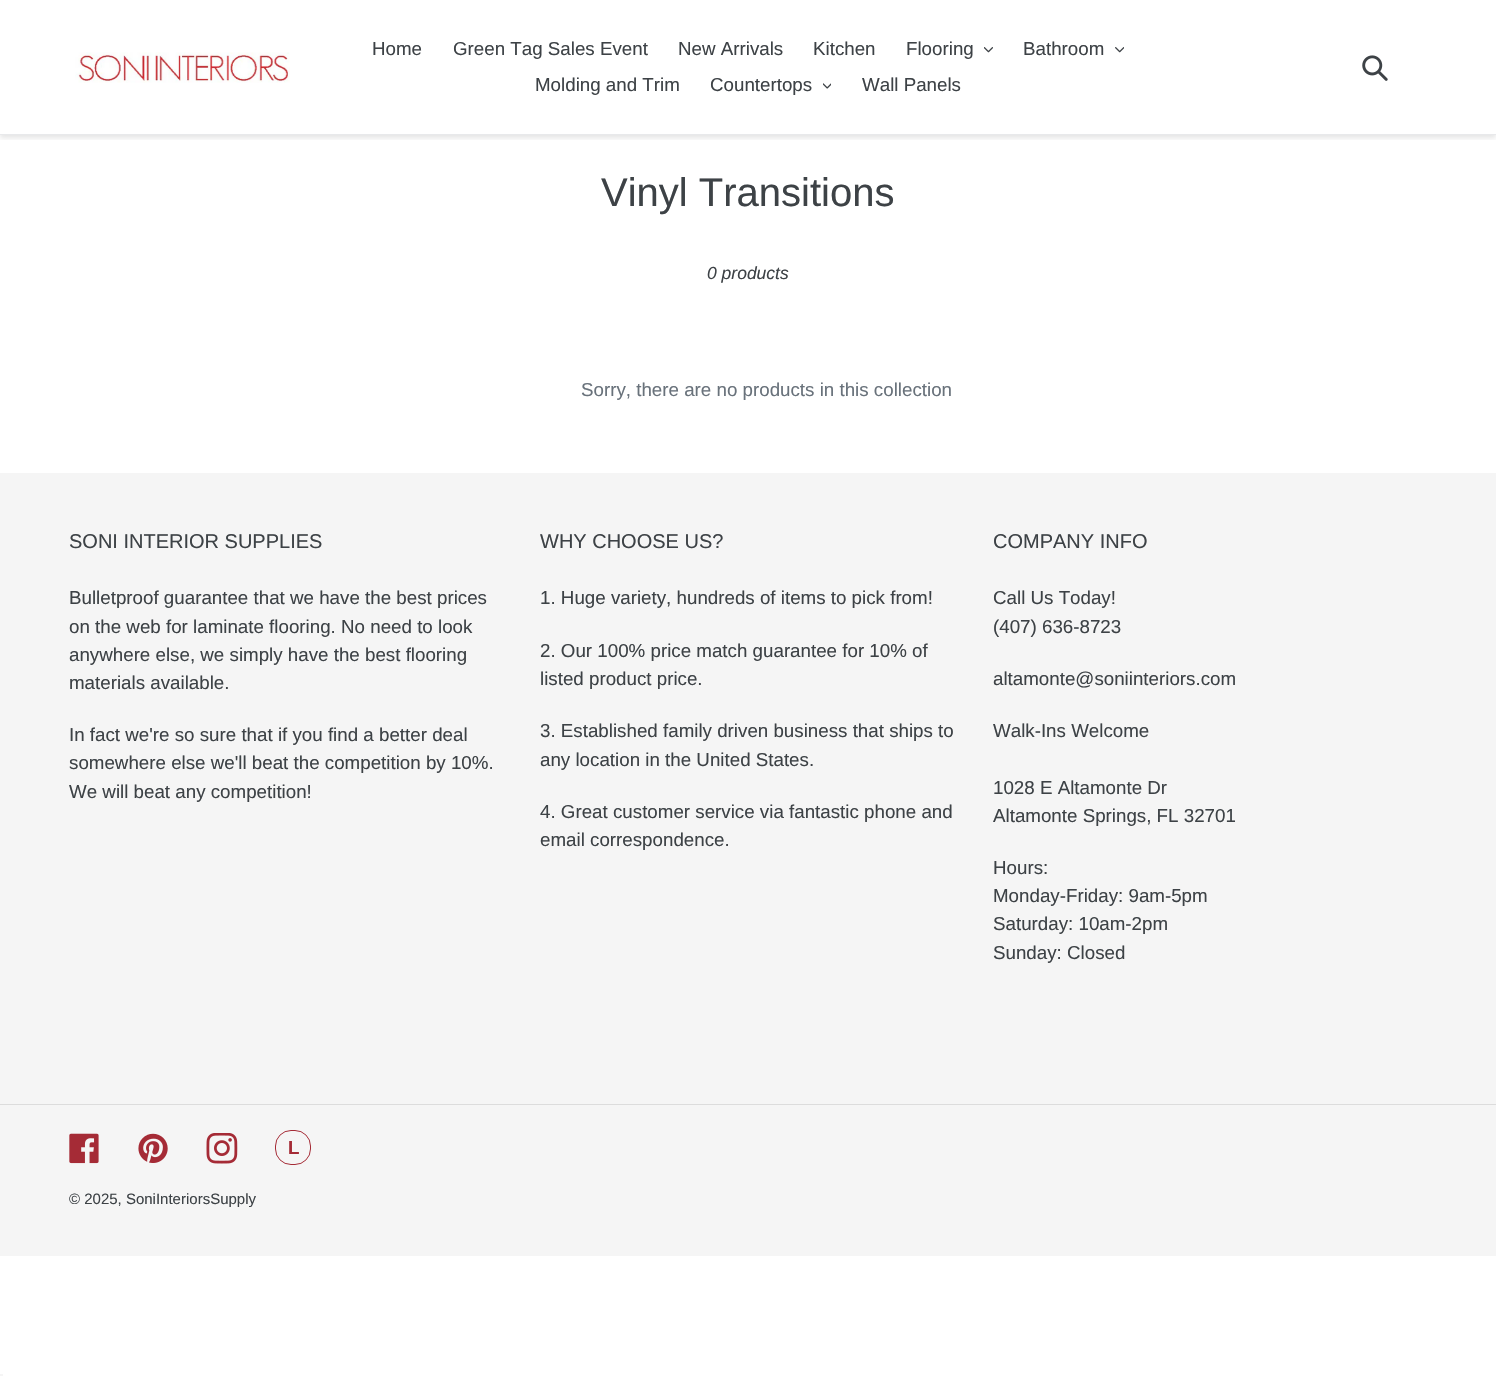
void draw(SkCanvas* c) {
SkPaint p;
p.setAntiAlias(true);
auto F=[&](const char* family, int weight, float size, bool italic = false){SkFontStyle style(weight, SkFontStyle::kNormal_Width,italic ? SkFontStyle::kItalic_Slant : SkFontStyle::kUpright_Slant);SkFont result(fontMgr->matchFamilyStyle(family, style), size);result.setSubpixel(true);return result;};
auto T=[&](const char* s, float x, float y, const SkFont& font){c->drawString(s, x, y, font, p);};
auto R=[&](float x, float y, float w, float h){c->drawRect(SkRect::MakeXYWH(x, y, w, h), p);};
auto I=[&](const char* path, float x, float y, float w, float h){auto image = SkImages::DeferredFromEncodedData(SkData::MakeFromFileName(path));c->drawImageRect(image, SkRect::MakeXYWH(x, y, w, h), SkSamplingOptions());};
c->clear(0xffffffff);
c->save();
c->clipRect(SkRect::MakeXYWH(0,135,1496,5));
p.setColor(0x1a000000);
p.setMaskFilter(SkMaskFilter::MakeBlur(kNormal_SkBlurStyle, 2.5));
c->drawRect(SkRect::MakeXYWH(0,3,1496,135),p);
p.setMaskFilter(nullptr);
c->restore();
p.setColor(0xffe8e9eb);
R(0,134,1496,1);
I("1.png",75,52,215,31);
auto f1 = F("Arimo",400,18.75);
p.setColor(0xff3d4246);
T("Home",372,55,f1);
T("Green Tag Sales Event",453,55,f1);
T("New Arrivals",678,55,f1);
T("Kitchen",813,55,f1);
T("Flooring",906,55,f1);
I("2.png",984,47,9,6);
T("Bathroom",1023,55,f1);
I("3.png",1115,47,9,6);
T("Molding and Trim",535,91,f1);
T("Countertops",710,91,f1);
I("4.png",823,83,8,6);
T("Wall Panels",862,91,f1);
I("5.png",1362,55,26,26);
auto f2 = F("Arimo",400,40);
T("Vinyl Transitions",601,206,f2);
auto f3 = F("Arimo",400,17.5,true);
T("0 products",707,279,f3);
p.setColor(0xff69727b);
T("Sorry, there are no products in this collection",581,396,f1);
p.setColor(0xfff5f5f5);
R(0,473,1496,783);
auto f4 = F("Arimo",400,20);
p.setColor(0xff3d4246);
T("SONI INTERIOR SUPPLIES",69,548,f4);
T("Bulletproof guarantee that we have the best prices",69,604,f1);
T("on the web for laminate flooring. No need to look",69,633,f1);
T("anywhere else, we simply have the best flooring",69,661,f1);
T("materials available.",69,689,f1);
T("In fact we're so sure that if you find a better deal",69,741,f1);
T("somewhere else we'll beat the competition by 10%.",69,769,f1);
T("We will beat any competition!",69,798,f1);
T("WHY CHOOSE US?",540,548,f4);
T("1. Huge variety, hundreds of items to pick from!",540,604,f1);
T("2. Our 100% price match guarantee for 10% of",540,657,f1);
T("listed product price.",540,685,f1);
T("3. Established family driven business that ships to",540,737,f1);
T("any location in the United States.",540,766,f1);
T("4. Great customer service via fantastic phone and",540,818,f1);
T("email correspondence.",540,846,f1);
T("COMPANY INFO",993,548,f4);
T("Call Us Today!",993,604,f1);
T("(407) 636-8723",993,633,f1);
T("altamonte@soniinteriors.com",993,685,f1);
T("Walk-Ins Welcome",993,737,f1);
T("1028 E Altamonte Dr",993,794,f1);
T("Altamonte Springs, FL 32701",993,822,f1);
T("Hours:",993,874,f1);
T("Monday-Friday: 9am-5pm",993,902,f1);
T("Saturday: 10am-2pm",993,930,f1);
T("Sunday: Closed",993,959,f1);
p.setColor(0xffdcdcdc);
R(0,1104,1496,1);
I("6.png",69,1133,30,31);
I("7.png",138,1133,30,30);
I("8.png",206,1133,32,31);
p.setStroke(true);
p.setStrokeWidth(1);
p.setColor(0xffa52b36);
c->drawRoundRect(SkRect::MakeXYWH(275.5,1130.5,35,34),15.5,15.5,p);
auto f5 = F("Arimo",700,18.75);
p.setStroke(false);
T("L",288,1154,f5);
auto f6 = F("Arimo",400,15);
p.setColor(0xff3d4246);
T("© 2025, SoniInteriorsSupply",69,1204,f6);
p.setColor(0xfff5f5f5);
R(0,1374,3,2);
}
